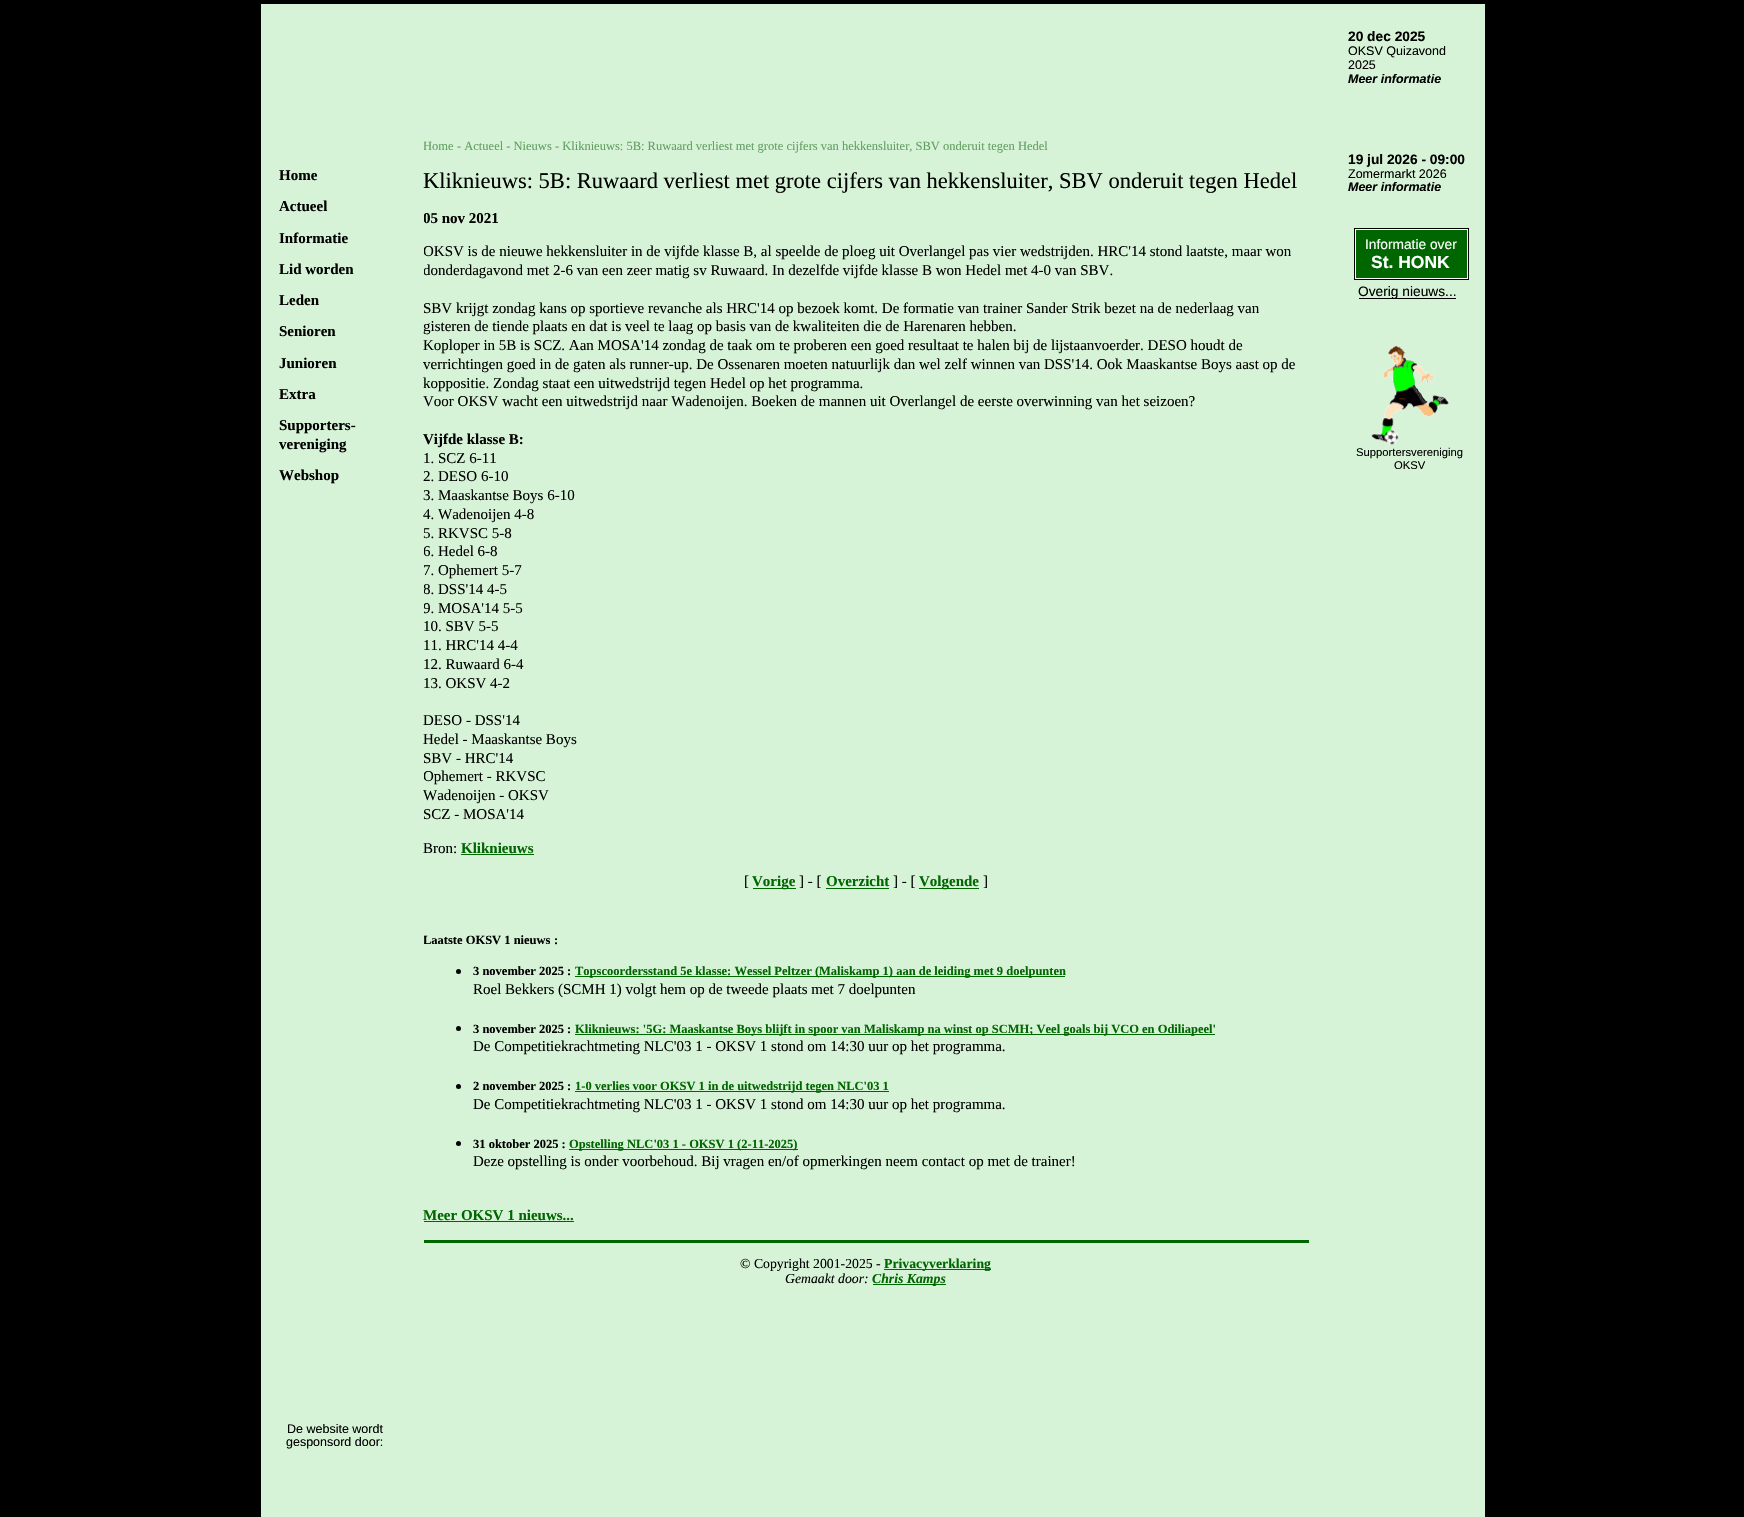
void draw(SkCanvas* c) {
SkPaint p;
p.setAntiAlias(true);
auto F=[&](const char* family, int weight, float size, bool italic = false){SkFontStyle style(weight, SkFontStyle::kNormal_Width,italic ? SkFontStyle::kItalic_Slant : SkFontStyle::kUpright_Slant);SkFont result(fontMgr->matchFamilyStyle(family, style), size);result.setSubpixel(true);return result;};
auto T=[&](const char* s, float x, float y, const SkFont& font){c->drawString(s, x, y, font, p);};
auto R=[&](float x, float y, float w, float h){c->drawRect(SkRect::MakeXYWH(x, y, w, h), p);};
auto I=[&](const char* path, float x, float y, float w, float h){auto image = SkImages::DeferredFromEncodedData(SkData::MakeFromFileName(path));c->drawImageRect(image, SkRect::MakeXYWH(x, y, w, h), SkSamplingOptions());};
c->clear(0xff000000);
p.setColor(0xffd7f3d7);
R(261,4,163,1513);
auto f1 = F("Liberation Serif",700,15);
p.setColor(0xff000000);
T("Home",279,180,f1);
T("Actueel",279,211,f1);
T("Informatie",279,243,f1);
T("Lid worden",279,274,f1);
T("Leden",279,305,f1);
T("Senioren",279,336,f1);
T("Junioren",279,368,f1);
T("Extra",279,399,f1);
T("Supporters-",279,430,f1);
T("vereniging",279,449,f1);
T("Webshop",279,480,f1);
auto f2 = F("Liberation Sans",400,12.5);
T("De website wordt",287,1433,f2);
T("gesponsord door:",286,1446,f2);
p.setColor(0xffd7f3d7);
R(424,4,1061,1513);
c->save();
c->clipRect(SkRect::MakeXYWH(424,111,897,1405));
auto f3 = F("Liberation Serif",400,12.5);
p.setColor(0xff629e62);
T("Home",423,150,f3);
c->restore();
T("- Actueel - Nieuws - Kliknieuws: 5B: Ruwaard verliest met grote cijfers van hekkensluiter, SBV onderuit tegen Hedel",457,150,f3);
auto f4 = F("Liberation Serif",400,22.5);
p.setColor(0xff000000);
T("Kliknieuws: 5B: Ruwaard verliest met grote cijfers van hekkensluiter, SBV onderuit tegen Hedel",423,188,f4);
c->save();
c->clipRect(SkRect::MakeXYWH(424,111,897,1405));
T("05 nov 2021",423,223,f1);
auto f5 = F("Liberation Serif",400,15);
T("OKSV is de nieuwe hekkensluiter in de vijfde klasse B, al speelde de ploeg uit Overlangel pas vier wedstrijden. HRC'14 stond laatste, maar won",423,256,f5);
T("donderdagavond met 2-6 van een zeer matig sv Ruwaard. In dezelfde vijfde klasse B won Hedel met 4-0 van SBV.",423,275,f5);
c->restore();
T("SBV krijgt zondag kans op sportieve revanche als HRC'14 op bezoek komt. De formatie van trainer Sander Strik bezet na de nederlaag van",423,313,f5);
T("gisteren de tiende plaats en dat is veel te laag op basis van de kwaliteiten die de Harenaren hebben.",423,331,f5);
T("Koploper in 5B is SCZ. Aan MOSA'14 zondag de taak om te proberen een goed resultaat te halen bij de lijstaanvoerder. DESO houdt de",423,350,f5);
T("verrichtingen goed in de gaten als runner-up. De Ossenaren moeten natuurlijk dan wel zelf winnen van DSS'14. Ook Maaskantse Boys aast op de",423,369,f5);
T("koppositie. Zondag staat een uitwedstrijd tegen Hedel op het programma.",423,388,f5);
T("Voor OKSV wacht een uitwedstrijd naar Wadenoijen. Boeken de mannen uit Overlangel de eerste overwinning van het seizoen?",423,406,f5);
T("Vijfde klasse B:",423,444,f1);
T("1. SCZ 6-11",423,463,f5);
T("2. DESO 6-10",423,481,f5);
T("3. Maaskantse Boys 6-10",423,500,f5);
T("4. Wadenoijen 4-8",423,519,f5);
T("5. RKVSC 5-8",423,538,f5);
c->save();
c->clipRect(SkRect::MakeXYWH(424,111,897,1405));
T("6. Hedel 6-8",423,556,f5);
c->restore();
T("7. Ophemert 5-7",423,575,f5);
c->save();
c->clipRect(SkRect::MakeXYWH(424,111,897,1405));
T("8. DSS'14 4-5",423,594,f5);
T("9. MOSA'14 5-5",423,613,f5);
c->restore();
T("10. SBV 5-5",423,631,f5);
T("11. HRC'14 4-4",423,650,f5);
T("12. Ruwaard 6-4",423,669,f5);
T("13. OKSV 4-2",423,688,f5);
T("DESO - DSS'14",423,725,f5);
T("Hedel - Maaskantse Boys",423,744,f5);
T("SBV - HRC'14",423,763,f5);
c->save();
c->clipRect(SkRect::MakeXYWH(424,111,897,1405));
T("Ophemert - RKVSC",423,781,f5);
c->restore();
T("Wadenoijen - OKSV",423,800,f5);
T("SCZ - MOSA'14",423,819,f5);
T("Bron:",423,853,f5);
p.setColor(0xff006600);
T("Kliknieuws",461,853,f1);
R(461,854,73,1);
p.setColor(0xff000000);
T("[",744,886,f5);
p.setColor(0xff006600);
R(753,888,43,1);
T("Vorige",752,886,f1);
p.setColor(0xff000000);
T("] - [",799,886,f5);
p.setColor(0xff006600);
T("Overzicht",826,886,f1);
R(826,888,63,1);
p.setColor(0xff000000);
T("] - [",893,886,f5);
p.setColor(0xff006600);
R(919,888,60,1);
T("Volgende",919,886,f1);
p.setColor(0xff000000);
T("]",983,886,f5);
c->save();
c->clipRect(SkRect::MakeXYWH(424,111,897,1405));
auto f6 = F("Liberation Serif",700,12.5);
T("Laatste OKSV 1 nieuws",423,944,f6);
c->restore();
T(":",554,944,f6);
c->drawCircle(458.5,971.5,2.5,p);
T("3 november 2025 :",473,975,f6);
p.setColor(0xff006600);
R(575,976,490,1);
T("Topscoordersstand 5e klasse: Wessel Peltzer (Maliskamp 1) aan de leiding met 9 doelpunten",575,975,f6);
p.setColor(0xff000000);
T("Roel Bekkers (SCMH 1) volgt hem op de tweede plaats met 7 doelpunten",473,994,f5);
c->drawCircle(458.5,1028.5,2.5,p);
T("3 november 2025 :",473,1033,f6);
p.setColor(0xff006600);
R(575,1034,640,1);
T("Kliknieuws: '5G: Maaskantse Boys blijft in spoor van Maliskamp na winst op SCMH; Veel goals bij VCO en Odiliapeel'",575,1033,f6);
p.setColor(0xff000000);
T("De Competitiekrachtmeting NLC'03 1 - OKSV 1 stond om 14:30 uur op het programma.",473,1051,f5);
c->drawCircle(458.5,1086.5,2.5,p);
T("2 november 2025 :",473,1090,f6);
p.setColor(0xff006600);
R(575,1091,314,1);
T("1-0 verlies voor OKSV 1 in de uitwedstrijd tegen NLC'03 1",575,1090,f6);
p.setColor(0xff000000);
T("De Competitiekrachtmeting NLC'03 1 - OKSV 1 stond om 14:30 uur op het programma.",473,1109,f5);
c->drawCircle(458.5,1143.5,2.5,p);
T("31 oktober 2025 :",473,1148,f6);
p.setColor(0xff006600);
R(569,1149,229,1);
T("Opstelling NLC'03 1 - OKSV 1 (2-11-2025)",569,1148,f6);
p.setColor(0xff000000);
T("Deze opstelling is onder voorbehoud. Bij vragen en/of opmerkingen neem contact op met de trainer!",473,1166,f5);
p.setColor(0xff006600);
T("Meer OKSV 1 nieuws...",423,1220,f1);
R(424,1221,150,1);
R(424,1240,885,3);
auto f7 = F("Liberation Serif",400,13.75);
p.setColor(0xff000000);
T("© Copyright 2001-2025 -",740,1268,f7);
p.setColor(0xff006600);
R(884,1269,107,1);
auto f8 = F("Liberation Serif",700,13.75);
T("Privacyverklaring",884,1268,f8);
auto f9 = F("Liberation Serif",400,13.75,true);
p.setColor(0xff000000);
T("Gemaakt door:",785,1283,f9);
p.setColor(0xff006600);
R(873,1284,73,1);
auto f10 = F("Liberation Serif",700,13.75,true);
T("Chris Kamps",872,1283,f10);
auto f11 = F("Liberation Sans",700,13.75);
p.setColor(0xff000000);
T("20 dec 2025",1348,41,f11);
T("OKSV Quizavond",1348,55,f2);
T("2025",1348,69,f2);
auto f12 = F("Liberation Sans",700,12.5,true);
T("Meer informatie",1348,83,f12);
T("19 jul 2026 - 09:00",1348,164,f11);
T("Zomermarkt 2026",1348,178,f2);
T("Meer informatie",1348,191,f12);
p.setColor(0xff006600);
R(1356,230,111,48);
p.setStroke(true);
p.setStrokeWidth(1);
p.setColor(0xff000000);
c->drawRect(SkRect::MakeXYWH(1354.5,228.5,114,51),p);
p.setColor(0xffffffff);
c->drawRect(SkRect::MakeXYWH(1355.5,229.5,112,49),p);
auto f13 = F("Liberation Sans",400,13.75);
p.setStroke(false);
T("Informatie over",1365,249,f13);
auto f14 = F("Liberation Sans",700,17.5);
T("St. HONK",1371,268,f14);
p.setColor(0xff000000);
R(1359,298,97,1);
T("Overig nieuws...",1358,296,f13);
I("1.png",1371,346,78,99);
auto f15 = F("Liberation Sans",400,11.25);
T("Supportersvereniging",1356,456,f15);
T("OKSV",1394,469,f15);
}
